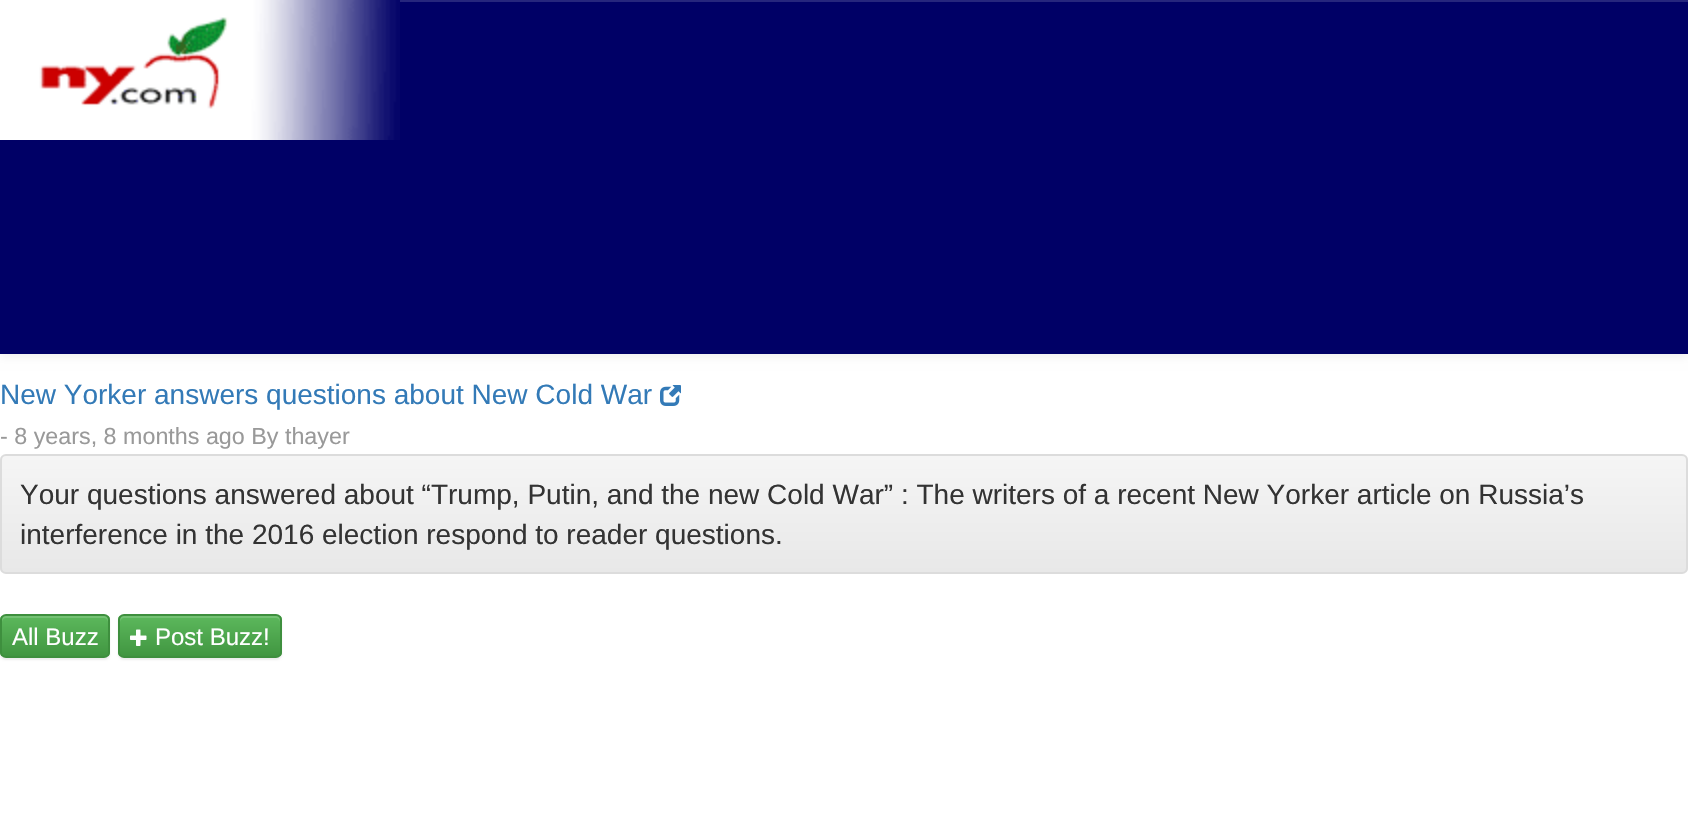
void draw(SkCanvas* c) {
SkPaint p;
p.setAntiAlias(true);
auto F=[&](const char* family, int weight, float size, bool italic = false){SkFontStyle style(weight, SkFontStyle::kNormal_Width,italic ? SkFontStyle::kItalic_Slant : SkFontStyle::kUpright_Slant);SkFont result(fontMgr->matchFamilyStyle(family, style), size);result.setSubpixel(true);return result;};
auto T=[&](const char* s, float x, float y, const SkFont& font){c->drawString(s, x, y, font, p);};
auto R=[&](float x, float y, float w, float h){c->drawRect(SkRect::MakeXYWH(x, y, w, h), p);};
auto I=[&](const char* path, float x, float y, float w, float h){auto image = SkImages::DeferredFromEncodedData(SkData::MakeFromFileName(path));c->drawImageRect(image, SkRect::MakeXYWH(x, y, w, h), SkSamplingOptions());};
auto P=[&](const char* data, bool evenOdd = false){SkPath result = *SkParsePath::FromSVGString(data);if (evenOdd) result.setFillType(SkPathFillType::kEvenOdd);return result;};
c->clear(0xffffffff);
p.setColor(0x12000000);
p.setMaskFilter(SkMaskFilter::MakeBlur(kNormal_SkBlurStyle, 5));
c->drawRect(SkRect::MakeXYWH(0,2,1688,354),p);
p.setMaskFilter(nullptr);
p.setColor(0xff000066);
R(0,2,1688,352);
p.setColor(0xff26267d);
R(400,0,1288,2);
I("1.png",0,0,400,140);
auto f1 = F("Liberation Sans",400,28);
p.setColor(0xff337ab7);
T("New Yorker answers questions about New Cold War",0,404,f1);
I("2.png",660,385,21,21);
auto f2 = F("Liberation Sans",400,23.3);
p.setColor(0xff999999);
T("- 8 years, 8 months ago By thayer",0,444,f2);
c->save();
c->clipPath(P("M6 454h1676c3.5 0 6 2.5 6 6v108c0 3.5-2.5 6-6 6h-1676c-3.5 0-6-2.5-6-6v-108c0-3.5 2.5-6 6-6z"),true);
{
const SkColor colors[] = {0xffe8e8e8,0xfff5f5f5};
const float stops[] = {0,1};
const SkPoint ends[] = {{844,572}, {844,456}};
p.setShader(SkGradientShader::MakeLinear(ends, colors, stops, 2, SkTileMode::kClamp));
p.setAlpha(255);
}
R(0,456,1688,116);
c->restore();
p.setStroke(true);
p.setStrokeWidth(2);
p.setShader(nullptr);
p.setColor(0xffdcdcdc);
c->drawRoundRect(SkRect::MakeXYWH(1,455,1686,118),5,5,p);
p.setStroke(false);
p.setColor(0xff333333);
T("Your questions answered about “Trump, Putin, and the new Cold War” : The writers of a recent New Yorker article on Russia’s",20,504,f1);
T("interference in the 2016 election respond to reader questions.",20,544,f1);
p.setColor(0x12000000);
p.setMaskFilter(SkMaskFilter::MakeBlur(kNormal_SkBlurStyle, 1));
c->drawRoundRect(SkRect::MakeXYWH(0,616,110,44),6,6,p);
p.setMaskFilter(nullptr);
c->save();
c->clipPath(P("M6 614h98c3.5 0 6 2.5 6 6v32c0 3.5-2.5 6-6 6h-98c-3.5 0-6-2.5-6-6v-32c0-3.5 2.5-6 6-6z"),true);
{
const SkColor colors[] = {0xff5cb85c,0xff419641};
const float stops[] = {0,1};
const SkPoint ends[] = {{55,616}, {55,656}};
p.setShader(SkGradientShader::MakeLinear(ends, colors, stops, 2, SkTileMode::kClamp));
p.setAlpha(255);
}
R(0,616,110,40);
c->restore();
p.setShader(nullptr);
p.setColor(0x26ffffff);
c->drawPath(P("M6 618h98c2 0 4 2 4 4v-2c0-2-2-4-4-4h-98c-2 0-4 2-4 4v2c0-2 2-4 4-4z"),p);
p.setStroke(true);
p.setColor(0xff3e8f3e);
c->drawRoundRect(SkRect::MakeXYWH(1,615,108,42),5,5,p);
auto f3 = F("Liberation Sans",400,24);
p.setStroke(false);
p.setColor(0xffffffff);
T("All Buzz",12,645,f3);
p.setColor(0x12000000);
p.setMaskFilter(SkMaskFilter::MakeBlur(kNormal_SkBlurStyle, 1));
c->drawRoundRect(SkRect::MakeXYWH(118,616,164,44),6,6,p);
p.setMaskFilter(nullptr);
c->save();
c->clipPath(P("M124 614h152c3.5 0 6 2.5 6 6v32c0 3.5-2.5 6-6 6h-152c-3.5 0-6-2.5-6-6v-32c0-3.5 2.5-6 6-6z"),true);
{
const SkColor colors[] = {0xff5cb85c,0xff419641};
const float stops[] = {0,1};
const SkPoint ends[] = {{200,616}, {200,656}};
p.setShader(SkGradientShader::MakeLinear(ends, colors, stops, 2, SkTileMode::kClamp));
p.setAlpha(255);
}
R(118,616,164,40);
c->restore();
p.setShader(nullptr);
p.setColor(0x26ffffff);
c->drawPath(P("M124 618h152c2 0 4 2 4 4v-2c0-2-2-4-4-4h-152c-2 0-4 2-4 4v2c0-2 2-4 4-4z"),p);
p.setStroke(true);
p.setColor(0xff3e8f3e);
c->drawRoundRect(SkRect::MakeXYWH(119,615,162,42),5,5,p);
I("3.png",130,629,17,17);
p.setStroke(false);
p.setColor(0xffffffff);
T("Post Buzz!",155,645,f3);
}
